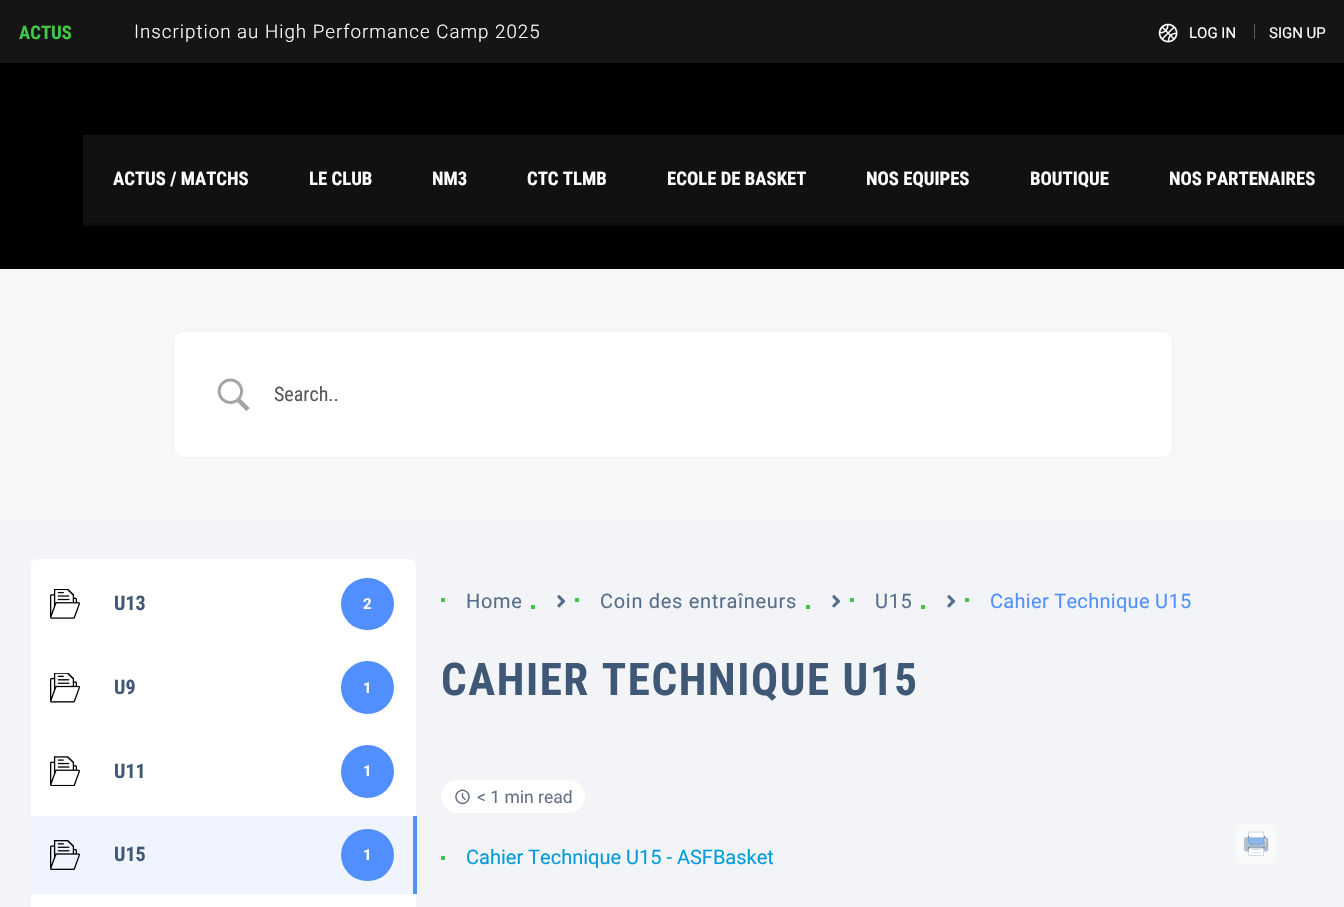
void draw(SkCanvas* c) {
SkPaint p;
p.setAntiAlias(true);
auto F=[&](const char* family, int weight, float size, bool italic = false){SkFontStyle style(weight, SkFontStyle::kNormal_Width,italic ? SkFontStyle::kItalic_Slant : SkFontStyle::kUpright_Slant);SkFont result(fontMgr->matchFamilyStyle(family, style), size);result.setSubpixel(true);return result;};
auto T=[&](const char* s, float x, float y, const SkFont& font){c->drawString(s, x, y, font, p);};
auto L=[&](const char* s, float x, float y, const SkFont& font, const SkPaint& ink, float letter, float word){std::vector<SkGlyphID> glyphs(font.countText(s, strlen(s), SkTextEncoding::kUTF8));std::vector<float> xs(glyphs.size());font.textToGlyphs(s, strlen(s), SkTextEncoding::kUTF8, glyphs);font.getXPos(glyphs, xs, x);float extra = 0;for (size_t i = 0; i < glyphs.size(); i++) {xs[i] += extra;extra += letter + word * (glyphs[i] == font.unicharToGlyph(' '));}c->drawTextBlob(SkTextBlob::MakeFromPosHGlyphs(glyphs, xs, y, font), 0, 0, ink);};
auto R=[&](float x, float y, float w, float h){c->drawRect(SkRect::MakeXYWH(x, y, w, h), p);};
auto Q=[&](float x, float y, float w, float h, float radius){c->drawRoundRect(SkRect::MakeXYWH(x, y, w, h), radius, radius, p);};
auto I=[&](const char* path, float x, float y, float w, float h){auto image = SkImages::DeferredFromEncodedData(SkData::MakeFromFileName(path));c->drawImageRect(image, SkRect::MakeXYWH(x, y, w, h), SkSamplingOptions());};
c->clear(0xff151515);
auto f1 = F("Roboto Condensed",700,18.75);
p.setColor(0xff41c648);
T("ACTUS",19,39,f1);
auto f2 = F("Roboto",300,18.75);
p.setColor(0xffffffff);
L("Inscription au High Performance Camp 2025",134,38,f2,p,1,0);
I("1.png",1158,23,20,20);
auto f3 = F("Roboto",400,15);
T("LOG IN",1189,38,f3);
p.setColor(0xff5b5b5b);
R(1254,24,1,15);
p.setColor(0xffffffff);
T("SIGN UP",1269,38,f3);
p.setColor(0xff000000);
R(0,63,1344,206);
p.setColor(0xff111111);
R(83,135,1261,88);
p.setColor(0xffffffff);
T("ACTUS / MATCHS",113,185,f1);
T("LE CLUB",309,185,f1);
T("NM3",432,185,f1);
T("CTC TLMB",527,185,f1);
T("ECOLE DE BASKET",667,185,f1);
T("NOS EQUIPES",866,185,f1);
T("BOUTIQUE",1030,185,f1);
T("NOS PARTENAIRES",1169,185,f1);
p.setColor(0xff0b0b0b);
R(83,223,1261,3);
p.setColor(0xfff2f4f7);
R(0,521,1344,386);
p.setColor(0xfff7f7f7);
R(0,269,1344,251);
p.setColor(0xfff1f1f1);
R(0,520,1344,1);
p.setColor(0xffffffff);
c->drawRoundRect(SkRect::MakeXYWH(173.5,331.5,999,126),9.5,9.5,p);
p.setStroke(true);
p.setStrokeWidth(1);
p.setColor(0xfff1f1f1);
c->drawRoundRect(SkRect::MakeXYWH(173.5,331.5,999,126),9.5,9.5,p);
I("2.png",217,378,33,34);
auto f4 = F("Roboto Condensed",400,20);
p.setStroke(false);
p.setColor(0xff595959);
T("Search..",274,401,f4);
p.setColor(0xffffffff);
Q(31,559,385,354,6);
I("3.png",50,589,30,30);
auto f5 = F("Roboto Condensed",700,20);
p.setColor(0xff3f5876);
T("U13",114,610,f5);
p.setColor(0xff528ffe);
Q(341,578,53,52,26);
auto f6 = F("Roboto",700,15);
p.setColor(0xffffffff);
T("2",363,609,f6);
I("4.png",50,673,30,30);
p.setColor(0xff3f5876);
T("U9",114,694,f5);
p.setColor(0xff528ffe);
c->drawCircle(367.5,687.5,26.5,p);
p.setColor(0xffffffff);
T("1",363,693,f6);
I("5.png",50,756,30,30);
p.setColor(0xff3f5876);
T("U11",114,778,f5);
p.setColor(0xff528ffe);
c->drawCircle(367.5,771.5,26.5,p);
p.setColor(0xffffffff);
T("1",363,776,f6);
p.setColor(0xffeff4ff);
R(31,816,382,78);
p.setColor(0xff528fff);
R(413,816,4,78);
I("6.png",50,840,30,30);
p.setColor(0xff3f5876);
T("U15",114,861,f5);
p.setColor(0xff528ffe);
Q(341,829,53,52,26);
p.setColor(0xffffffff);
T("1",363,860,f6);
p.setColor(0xff41c648);
R(441,598,4,4);
auto f7 = F("Roboto",400,20);
p.setColor(0xff566e8b);
L("Home",466,608,f7,p,.7,0);
p.setColor(0xff41c648);
R(531,605,4,4);
I("7.png",557,595,9,13);
R(575,598,4,4);
p.setColor(0xff566e8b);
L("Coin des entraîneurs",600,608,f7,p,.7,0);
p.setColor(0xff41c648);
R(806,605,4,4);
I("7.png",832,595,9,13);
R(850,598,4,4);
p.setColor(0xff566e8b);
L("U15",875,608,f7,p,.7,0);
p.setColor(0xff41c648);
R(921,605,4,4);
I("7.png",947,595,9,13);
R(965,598,4,4);
p.setColor(0xff528fff);
L("Cahier Technique U15",990,608,f7,p,.3,0);
auto f8 = F("Roboto Condensed",700,45);
p.setColor(0xff3f5876);
L("CAHIER TECHNIQUE U15",441,695,f8,p,1.6,0);
p.setColor(0xffffffff);
Q(441,780,144,33,16.5);
I("8.png",455,789,15,16);
auto f9 = F("Roboto",400,17.5);
p.setColor(0xff667085);
T("< 1 min read",477,803,f9);
p.setColor(0xff41c648);
R(441,856,4,4);
p.setColor(0xff009bdc);
T("Cahier Technique U15 - ASFBasket",466,864,f7);
p.setColor(0xfffafafa);
Q(1236,824,40,40,6);
I("9.png",1244,831,25,25);
}
